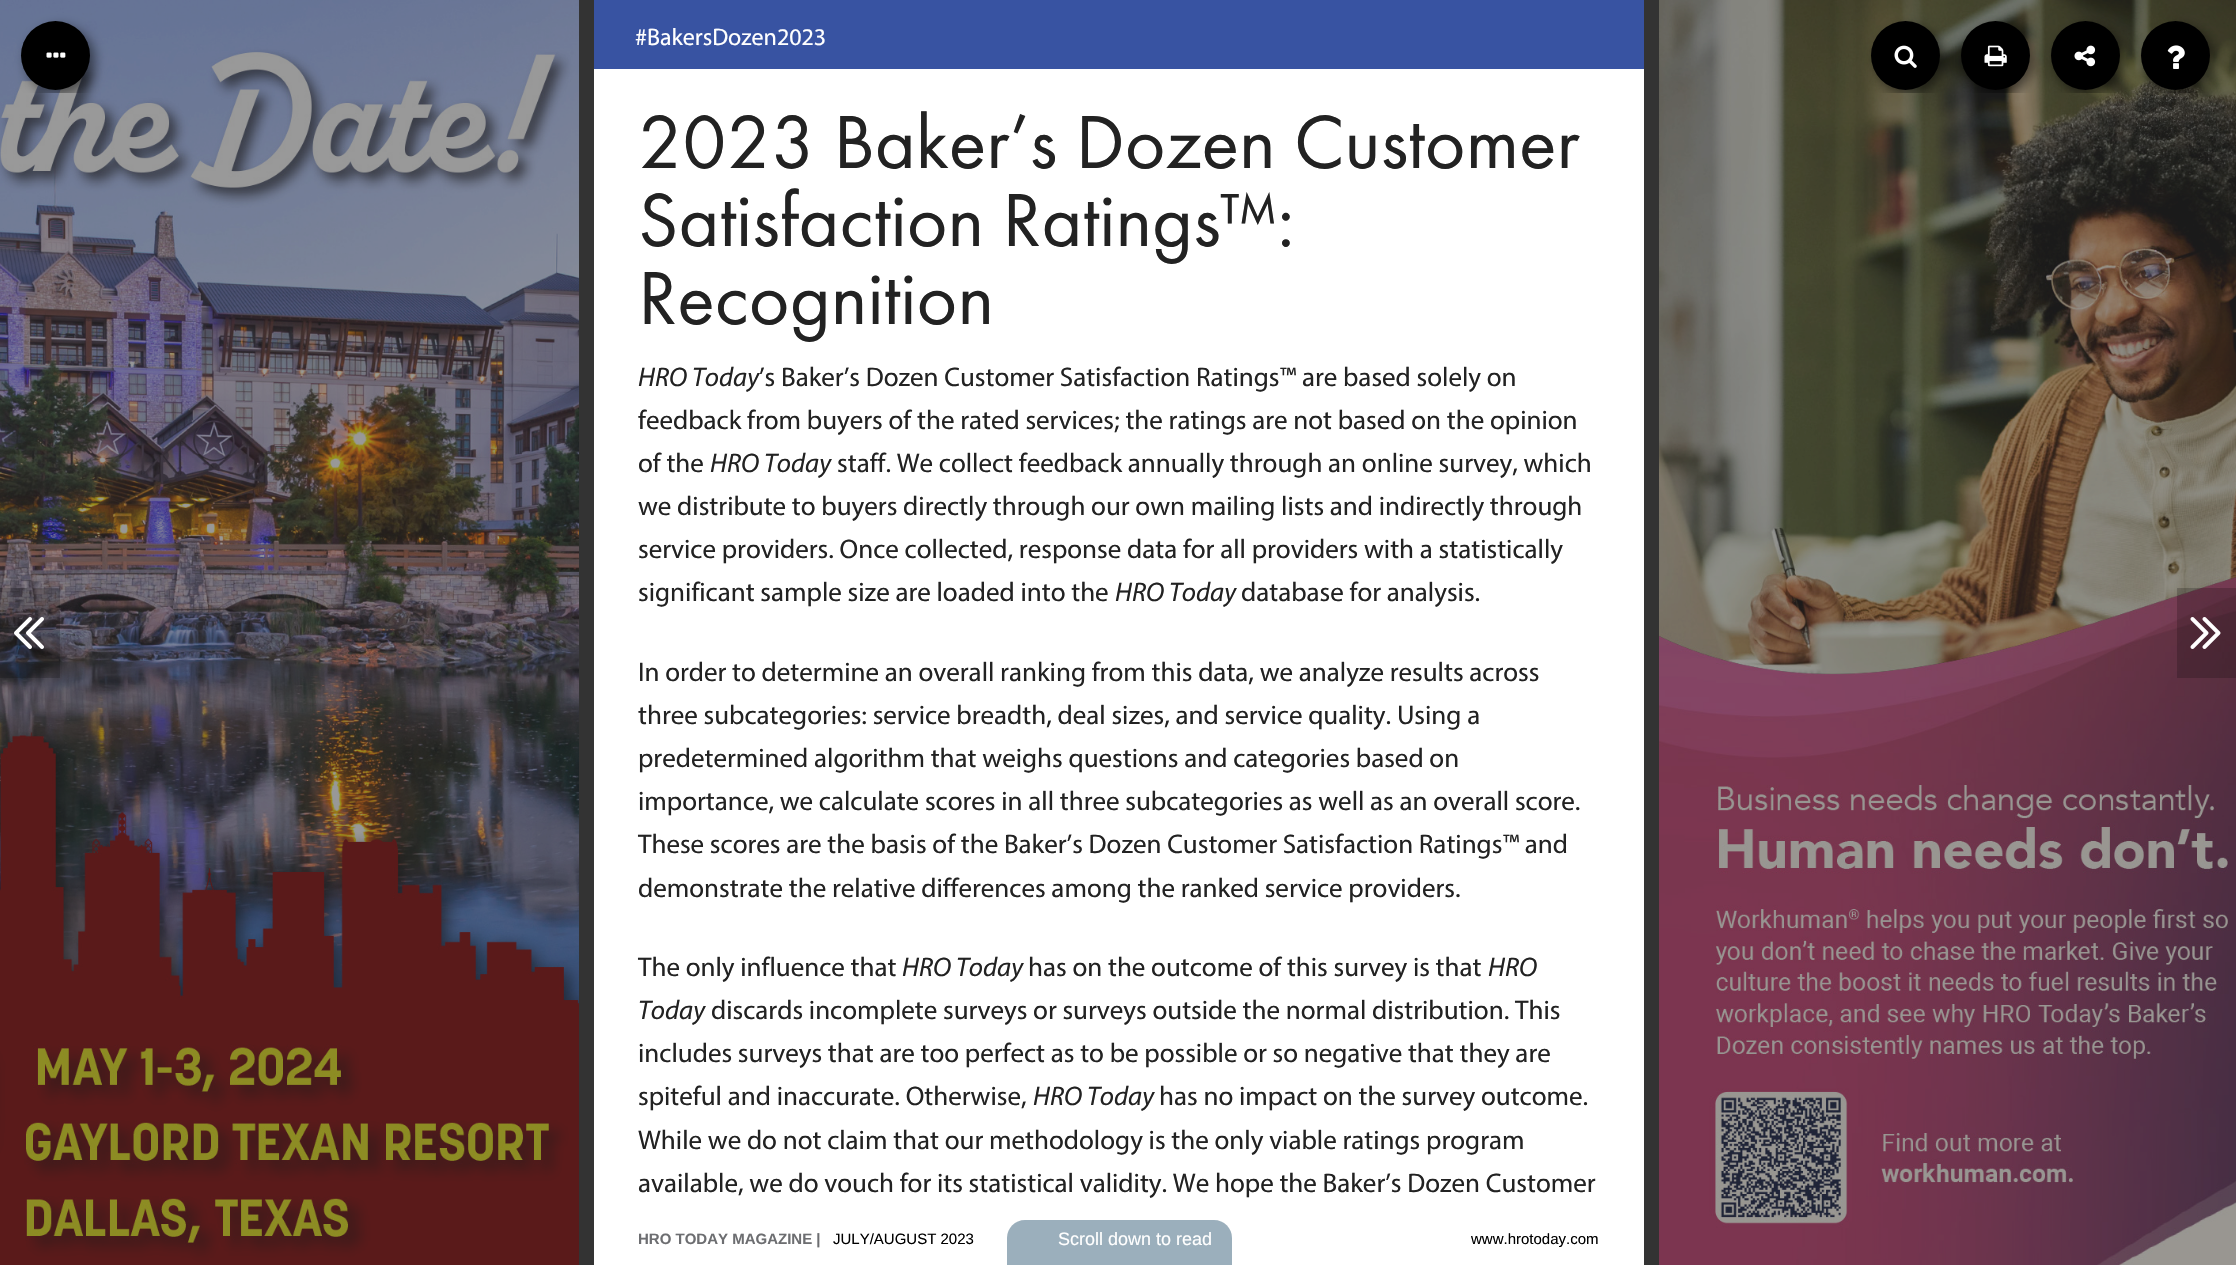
void draw(SkCanvas* c) {
SkPaint p;
p.setAntiAlias(true);
auto F=[&](const char* family, int weight, float size, bool italic = false){SkFontStyle style(weight, SkFontStyle::kNormal_Width,italic ? SkFontStyle::kItalic_Slant : SkFontStyle::kUpright_Slant);SkFont result(fontMgr->matchFamilyStyle(family, style), size);result.setSubpixel(true);return result;};
auto T=[&](const char* s, float x, float y, const SkFont& font){c->drawString(s, x, y, font, p);};
auto R=[&](float x, float y, float w, float h){c->drawRect(SkRect::MakeXYWH(x, y, w, h), p);};
auto I=[&](const char* path, float x, float y, float w, float h){auto image = SkImages::DeferredFromEncodedData(SkData::MakeFromFileName(path));c->drawImageRect(image, SkRect::MakeXYWH(x, y, w, h), SkSamplingOptions());};
auto P=[&](const char* data, bool evenOdd = false){SkPath result = *SkParsePath::FromSVGString(data);if (evenOdd) result.setFillType(SkPathFillType::kEvenOdd);return result;};
c->clear(0xff333333);
I("6.png",0,0,579,1265);
c->save();
c->clipRect(SkRect::MakeXYWH(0,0,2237,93));
p.setColor(0x80000000);
p.setMaskFilter(SkMaskFilter::MakeBlur(kNormal_SkBlurStyle, 6));
c->drawRoundRect(SkRect::MakeXYWH(26,26,69,69),34.5,34.5,p);
p.setMaskFilter(nullptr);
c->restore();
p.setColor(0xff000000);
c->drawCircle(55.5,55.5,34.5,p);
I("1.png",46,52,20,6);
I("7.png",1659,0,577,1265);
c->save();
c->clipRect(SkRect::MakeXYWH(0,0,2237,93));
p.setColor(0x80000000);
p.setMaskFilter(SkMaskFilter::MakeBlur(kNormal_SkBlurStyle, 6));
c->drawRoundRect(SkRect::MakeXYWH(2145,26,69,69),34.5,34.5,p);
p.setMaskFilter(nullptr);
c->restore();
p.setColor(0xff000000);
c->drawCircle(2175.5,55.5,34.5,p);
c->save();
c->clipRect(SkRect::MakeXYWH(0,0,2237,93));
p.setColor(0x80000000);
p.setMaskFilter(SkMaskFilter::MakeBlur(kNormal_SkBlurStyle, 6));
c->drawRoundRect(SkRect::MakeXYWH(2055,26,69,69),34.5,34.5,p);
p.setMaskFilter(nullptr);
c->restore();
p.setColor(0xff000000);
c->drawCircle(2085.5,55.5,34.5,p);
c->save();
c->clipRect(SkRect::MakeXYWH(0,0,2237,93));
p.setColor(0x80000000);
p.setMaskFilter(SkMaskFilter::MakeBlur(kNormal_SkBlurStyle, 6));
c->drawRoundRect(SkRect::MakeXYWH(1965,26,69,69),34.5,34.5,p);
p.setMaskFilter(nullptr);
c->restore();
p.setColor(0xff000000);
c->drawCircle(1995.5,55.5,34.5,p);
c->save();
c->clipRect(SkRect::MakeXYWH(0,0,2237,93));
p.setColor(0x80000000);
p.setMaskFilter(SkMaskFilter::MakeBlur(kNormal_SkBlurStyle, 6));
c->drawRoundRect(SkRect::MakeXYWH(1875,26,69,69),34.5,34.5,p);
p.setMaskFilter(nullptr);
c->restore();
p.setColor(0xff000000);
c->drawCircle(1905.5,55.5,34.5,p);
I("2.png",1894,45,23,23);
I("3.png",1984,45,23,22);
I("4.png",2074,45,22,22);
I("5.png",2167,45,18,24);
p.setColor(0xffffffff);
R(594,69,1050,1196);
p.setColor(0xff3853a2);
R(594,0,1050,69);
auto f1 = F("Myriad",400,24);
p.setColor(0xffffffff);
T("#BakersDozen2023",635,45,f1);
auto f2 = F("Futura PT",400,78);
p.setColor(0xff222222);
T("2023 Baker’s Dozen Customer",638,168,f2);
T("Satisfaction Ratings™:",638,246,f2);
T("Recognition",638,324,f2);
auto f3 = F("Myriad",400,27,true);
T("HRO Today",638,386,f3);
auto f4 = F("Myriad",400,27);
T("’s Baker’s Dozen Customer Satisfaction Ratings™ are based solely on",759,386,f4);
T("feedback from buyers of the rated services; the ratings are not based on the opinion",638,429,f4);
T("of the",638,472,f4);
T("HRO Today",710,472,f3);
T("staff. We collect feedback annually through an online survey, which",837,472,f4);
T("we distribute to buyers directly through our own mailing lists and indirectly through",638,515,f4);
T("service providers. Once collected, response data for all providers with a statistically",638,558,f4);
T("significant sample size are loaded into the",638,601,f4);
T("HRO Today",1115,601,f3);
T("database for analysis.",1241,601,f4);
T("In order to determine an overall ranking from this data, we analyze results across",638,681,f4);
T("three subcategories: service breadth, deal sizes, and service quality. Using a",638,724,f4);
T("predetermined algorithm that weighs questions and categories based on",638,767,f4);
T("importance, we calculate scores in all three subcategories as well as an overall score.",638,810,f4);
T("These scores are the basis of the Baker’s Dozen Customer Satisfaction Ratings™ and",638,853,f4);
T("demonstrate the relative differences among the ranked service providers.",638,897,f4);
T("The only influence that",638,976,f4);
T("HRO Today",902,976,f3);
T("has on the outcome of this survey is that",1028,976,f4);
T("HRO",1488,976,f3);
T("Today",638,1019,f3);
T("discards incomplete surveys or surveys outside the normal distribution. This",711,1019,f4);
T("includes surveys that are too perfect as to be possible or so negative that they are",638,1062,f4);
T("spiteful and inaccurate. Otherwise,",638,1105,f4);
T("HRO Today",1033,1105,f3);
T("has no impact on the survey outcome.",1159,1105,f4);
T("While we do not claim that our methodology is the only viable ratings program",638,1149,f4);
T("available, we do vouch for its statistical validity. We hope the Baker’s Dozen Customer",638,1192,f4);
p.setColor(0xff9bafbc);
c->drawPath(P("M1025 1220h189c10 0 18 8 18 18v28h-225v-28c0-10 8-18 18-18z"),p);
auto f5 = F("Liberation Sans",400,18);
p.setColor(0xffffffff);
T("Scroll down to read",1058,1245,f5);
auto f6 = F("Liberation Sans",700,15);
p.setColor(0xff6d6e71);
T("HRO TODAY MAGAZINE |",638,1244,f6);
auto f7 = F("Liberation Sans",400,15);
p.setColor(0xff000000);
T("JULY/AUGUST 2023",833,1244,f7);
T("www.hrotoday.com",1471,1244,f7);
p.setColor(0x33000000);
R(0,588,60,90);
I("8.png",14,617,30,32);
R(2177,588,59,90);
I("9.png",2190,617,31,32);
}
